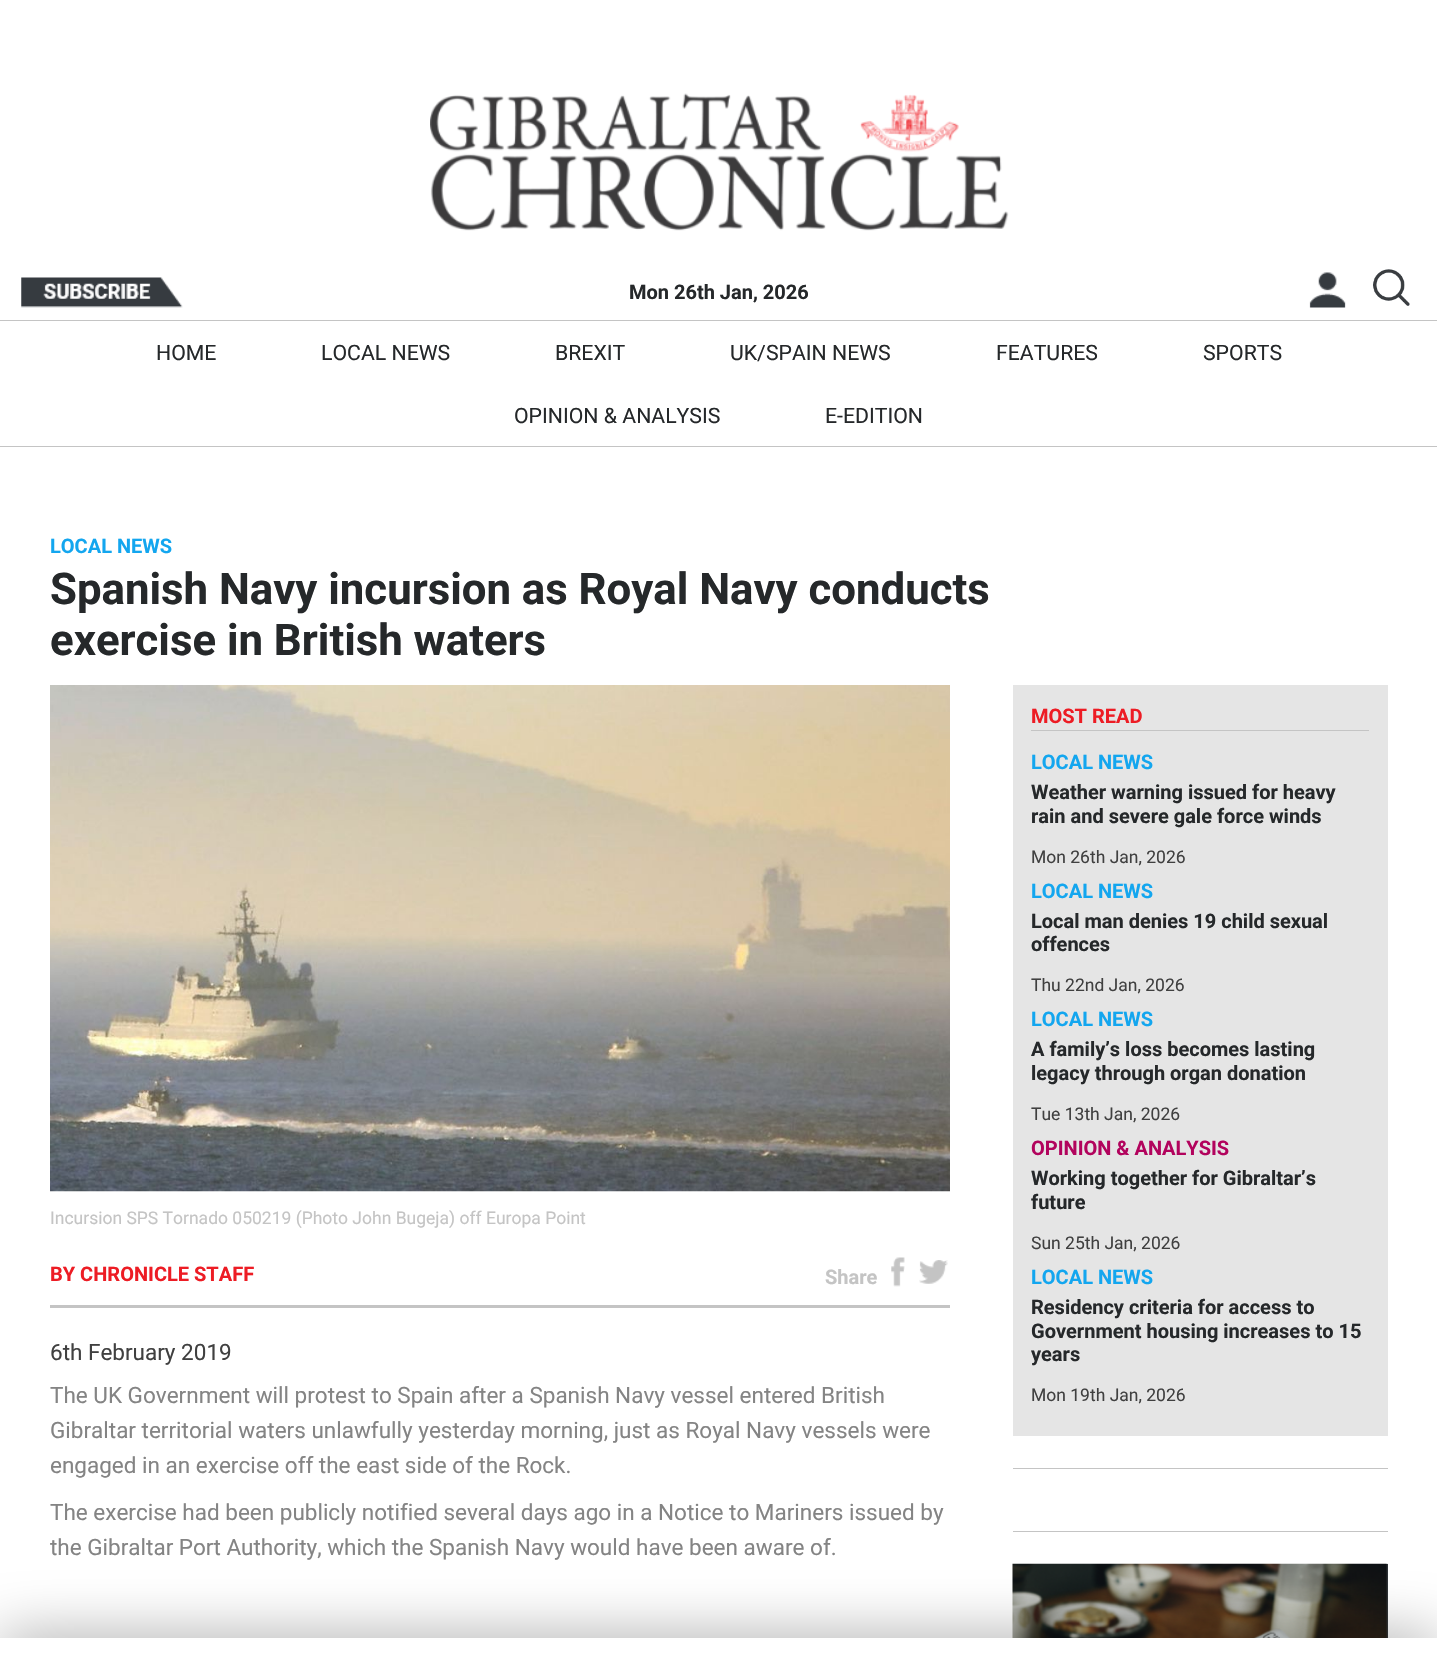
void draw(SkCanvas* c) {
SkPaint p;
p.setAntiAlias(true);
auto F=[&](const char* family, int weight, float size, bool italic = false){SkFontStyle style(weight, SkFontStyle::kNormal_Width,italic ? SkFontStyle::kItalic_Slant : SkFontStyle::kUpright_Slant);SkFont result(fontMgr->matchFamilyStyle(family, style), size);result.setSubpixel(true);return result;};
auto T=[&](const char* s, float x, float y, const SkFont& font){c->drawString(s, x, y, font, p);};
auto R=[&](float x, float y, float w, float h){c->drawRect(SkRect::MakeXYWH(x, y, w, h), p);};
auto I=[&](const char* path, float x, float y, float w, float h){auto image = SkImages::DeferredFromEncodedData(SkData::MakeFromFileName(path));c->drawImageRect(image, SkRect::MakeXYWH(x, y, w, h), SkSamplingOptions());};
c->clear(0xffffffff);
I("1.png",430,93,579,138);
I("2.png",21,277,162,31);
auto f1 = F("Roboto",700,20);
p.setColor(0xff25282a);
T("Mon 26th Jan, 2026",629,299,f1);
I("3.png",1309,272,37,36);
I("4.png",1373,269,37,37);
p.setColor(0xffc4c4c4);
R(0,320,1437,1);
R(0,446,1437,1);
auto f2 = F("Roboto",400,21.25);
p.setColor(0xff25282a);
T("HOME",156,360,f2);
T("LOCAL NEWS",321,360,f2);
T("BREXIT",555,360,f2);
T("UK/SPAIN NEWS",730,360,f2);
T("FEATURES",996,360,f2);
T("SPORTS",1203,360,f2);
T("OPINION & ANALYSIS",514,423,f2);
T("E-EDITION",825,423,f2);
p.setColor(0xff13a6ef);
T("LOCAL NEWS",50,553,f1);
auto f3 = F("Roboto",700,43.75);
p.setColor(0xff25282a);
T("Spanish Navy incursion as Royal Navy conducts",50,604,f3);
T("exercise in British waters",50,655,f3);
I("5.png",50,685,900,507);
auto f4 = F("Roboto",400,17.5);
p.setColor(0xffc4c4c4);
T("Incursion SPS Tornado 050219 (Photo John Bugeja) off Europa Point",50,1224,f4);
R(50,1305,900,3);
p.setColor(0xffed1c24);
T("BY CHRONICLE STAFF",50,1281,f1);
p.setColor(0xffc4c4c4);
T("Share",825,1284,f1);
I("6.png",891,1257,14,30);
I("7.png",919,1260,29,24);
auto f5 = F("Roboto",400,22.5);
p.setColor(0xff404040);
T("6th February 2019",50,1360,f5);
p.setColor(0xff848484);
T("The UK Government will protest to Spain after a Spanish Navy vessel entered British",50,1403,f5);
T("Gibraltar territorial waters unlawfully yesterday morning, just as Royal Navy vessels were",50,1438,f5);
T("engaged in an exercise off the east side of the Rock.",50,1473,f5);
T("The exercise had been publicly notified several days ago in a Notice to Mariners issued by",50,1520,f5);
T("the Gibraltar Port Authority, which the Spanish Navy would have been aware of.",50,1555,f5);
p.setColor(0xffe5e5e5);
R(1013,685,375,751);
p.setColor(0xffc4c4c4);
R(1031,730,338,1);
p.setColor(0xffed1c24);
T("MOST READ",1031,723,f1);
p.setColor(0xff13a6ef);
T("LOCAL NEWS",1031,769,f1);
p.setColor(0xff25282a);
T("Weather warning issued for heavy",1031,799,f1);
T("rain and severe gale force winds",1031,823,f1);
p.setColor(0xff404040);
T("Mon 26th Jan, 2026",1031,863,f4);
p.setColor(0xff13a6ef);
T("LOCAL NEWS",1031,898,f1);
p.setColor(0xff25282a);
T("Local man denies 19 child sexual",1031,928,f1);
T("offences",1031,951,f1);
p.setColor(0xff404040);
T("Thu 22nd Jan, 2026",1031,991,f4);
p.setColor(0xff13a6ef);
T("LOCAL NEWS",1031,1026,f1);
p.setColor(0xff25282a);
T("A family’s loss becomes lasting",1031,1056,f1);
T("legacy through organ donation",1031,1080,f1);
p.setColor(0xff404040);
T("Tue 13th Jan, 2026",1031,1120,f4);
p.setColor(0xffb2035d);
T("OPINION & ANALYSIS",1031,1155,f1);
p.setColor(0xff25282a);
T("Working together for Gibraltar’s",1031,1185,f1);
T("future",1031,1209,f1);
p.setColor(0xff404040);
T("Sun 25th Jan, 2026",1031,1249,f4);
p.setColor(0xff13a6ef);
T("LOCAL NEWS",1031,1284,f1);
p.setColor(0xff25282a);
T("Residency criteria for access to",1031,1314,f1);
T("Government housing increases to 15",1031,1338,f1);
T("years",1031,1361,f1);
p.setColor(0xff404040);
T("Mon 19th Jan, 2026",1031,1401,f4);
p.setColor(0xffc4c4c4);
R(1013,1468,375,1);
R(1013,1531,375,1);
p.setColor(0xff363b40);
R(1386,1564,2,74);
I("8.png",1012,1563,376,75);
p.setColor(0x80000000);
p.setMaskFilter(SkMaskFilter::MakeBlur(kNormal_SkBlurStyle, 31));
c->drawRect(SkRect::MakeXYWH(0,1644,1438,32),p);
p.setMaskFilter(nullptr);
p.setColor(0xffffffff);
R(0,1638,1437,31);
}
